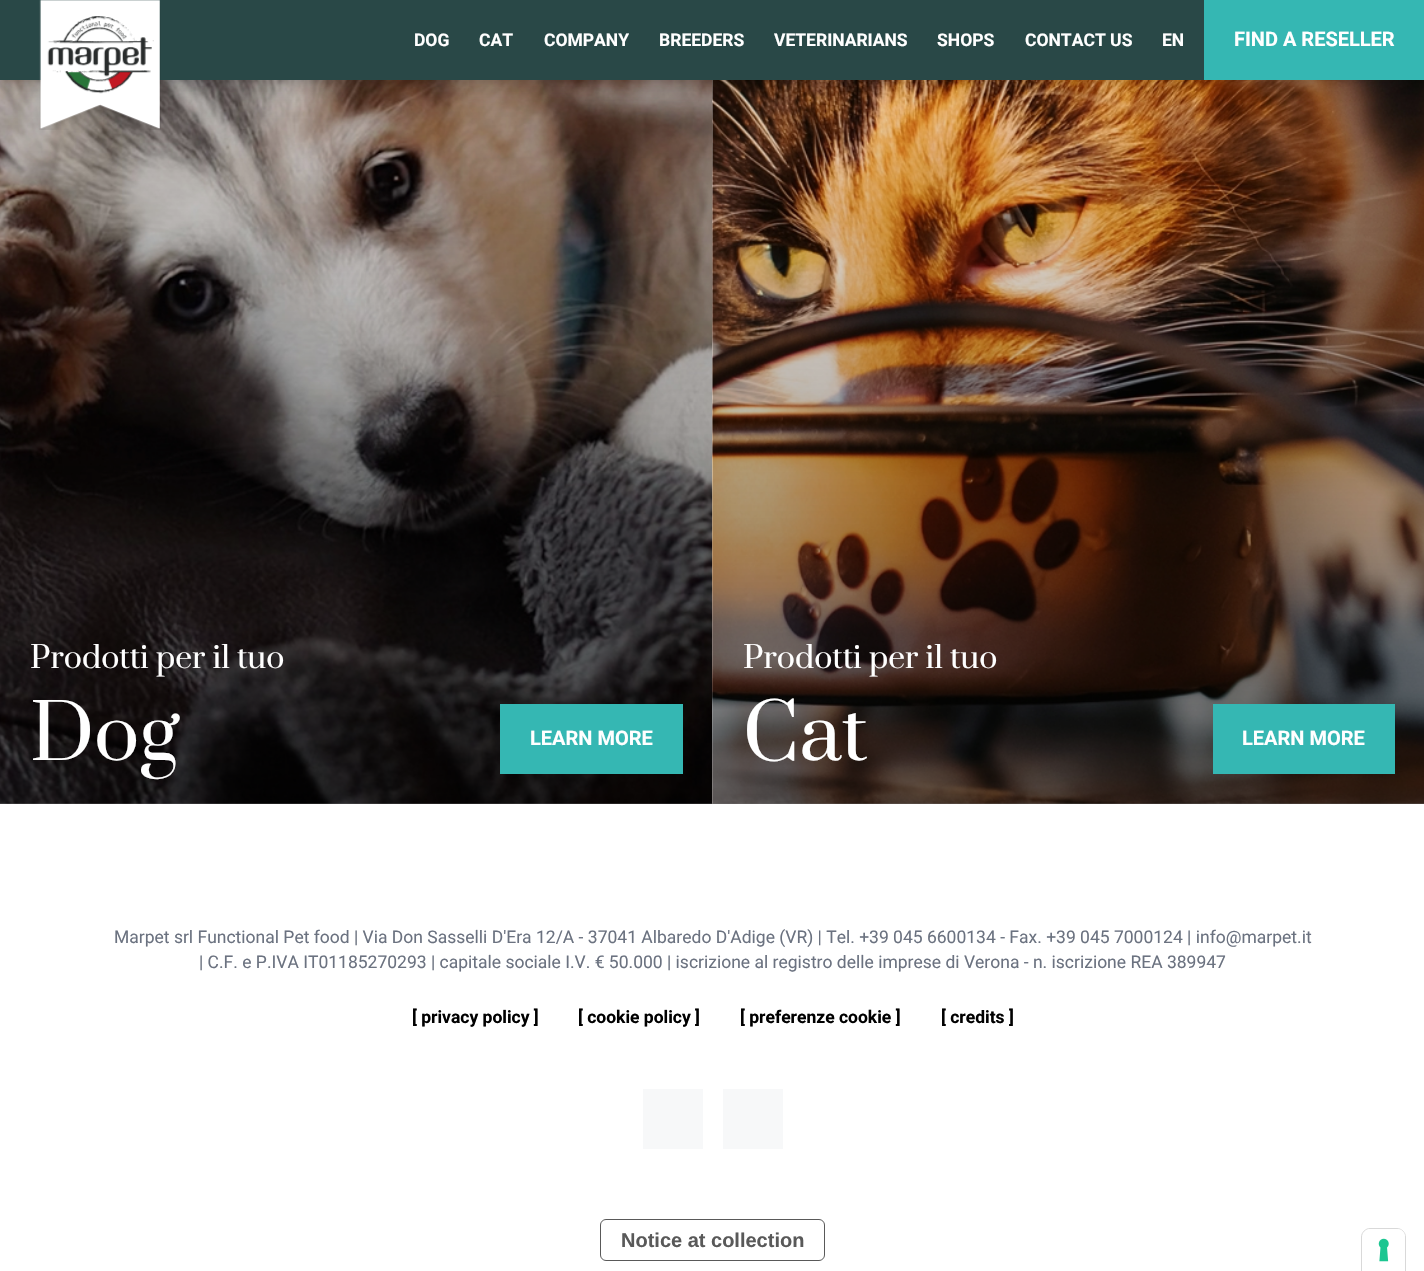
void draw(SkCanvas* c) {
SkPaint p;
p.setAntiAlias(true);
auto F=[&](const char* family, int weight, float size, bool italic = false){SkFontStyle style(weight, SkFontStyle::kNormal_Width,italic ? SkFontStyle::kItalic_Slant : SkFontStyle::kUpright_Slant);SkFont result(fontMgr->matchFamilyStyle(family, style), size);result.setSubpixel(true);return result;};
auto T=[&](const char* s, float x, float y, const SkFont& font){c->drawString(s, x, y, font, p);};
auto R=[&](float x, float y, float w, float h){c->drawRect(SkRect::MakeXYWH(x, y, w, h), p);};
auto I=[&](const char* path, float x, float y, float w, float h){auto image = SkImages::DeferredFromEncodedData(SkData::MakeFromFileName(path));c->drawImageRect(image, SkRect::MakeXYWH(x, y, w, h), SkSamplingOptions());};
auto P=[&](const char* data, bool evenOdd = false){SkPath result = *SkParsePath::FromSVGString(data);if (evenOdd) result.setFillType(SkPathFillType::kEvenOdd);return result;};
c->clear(0xffffffff);
I("2.png",0,80,713,724);
{
const SkColor colors[] = {0x80000000,0x00000000};
const float stops[] = {0,1};
const SkPoint ends[] = {{356,804}, {356,-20}};
p.setShader(SkGradientShader::MakeLinear(ends, colors, stops, 2, SkTileMode::kClamp));
p.setAlpha(255);
}
R(0,80,713,724);
I("3.png",712,80,712,724);
{
const SkColor colors[] = {0x80000000,0x00000000};
const float stops[] = {0,1};
const SkPoint ends[] = {{1069,804}, {1069,-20}};
p.setShader(SkGradientShader::MakeLinear(ends, colors, stops, 2, SkTileMode::kClamp));
p.setAlpha(255);
}
R(713,80,711,724);
p.setShader(nullptr);
p.setColor(0x1a000000);
p.setMaskFilter(SkMaskFilter::MakeBlur(kNormal_SkBlurStyle, 4));
c->drawRect(SkRect::MakeXYWH(5,10,1415,70),p);
p.setMaskFilter(nullptr);
p.setMaskFilter(SkMaskFilter::MakeBlur(kNormal_SkBlurStyle, 9.5));
c->drawRect(SkRect::MakeXYWH(4,16,1417,73),p);
p.setMaskFilter(nullptr);
p.setColor(0xff294847);
R(0,0,1204,80);
I("1.png",39,0,122,130);
auto f1 = F("Roboto",700,17.5);
p.setColor(0xffffffff);
T("DOG",414,46,f1);
T("CAT",479,46,f1);
T("COMPANY",544,46,f1);
T("BREEDERS",659,46,f1);
T("VETERINARIANS",774,46,f1);
T("SHOPS",937,46,f1);
T("CONTACT US",1025,46,f1);
T("EN",1162,46,f1);
p.setColor(0xff35b7b3);
R(1204,0,220,80);
auto f2 = F("Roboto",700,20);
p.setColor(0xffffffff);
T("FIND A RESELLER",1234,46,f2);
auto f3 = F("Prata",400,30);
T("Prodotti per il tuo",30,668,f3);
auto f4 = F("Prata",400,75);
T("Dog",30,760,f4);
p.setColor(0xff35b7b3);
R(500,704,183,70);
p.setColor(0xffffffff);
T("LEARN MORE",530,745,f2);
T("Prodotti per il tuo",743,668,f3);
T("Cat",743,760,f4);
p.setColor(0xff35b7b3);
R(1213,704,182,70);
p.setColor(0xffffffff);
T("LEARN MORE",1242,745,f2);
auto f5 = F("Roboto",400,17.5);
p.setColor(0xff6b7280);
T("Marpet srl Functional Pet food | Via Don Sasselli D'Era 12/A - 37041 Albaredo D'Adige (VR) | Tel. +39 045 6600134 - Fax. +39 045 7000124 | info@marpet.it",114,943,f5);
T("| C.F. e P.IVA IT01185270293 | capitale sociale I.V. € 50.000 | iscrizione al registro delle imprese di Verona - n. iscrizione REA 389947",199,968,f5);
p.setColor(0xff000000);
T("[ privacy policy ]",412,1023,f1);
T("[ cookie policy ]",578,1023,f1);
T("[ preferenze cookie ]",740,1023,f1);
T("[ credits ]",941,1023,f1);
p.setColor(0xfff7f8f9);
R(643,1089,60,60);
R(723,1089,60,60);
p.setStroke(true);
p.setStrokeWidth(1);
p.setColor(0xff595959);
c->drawRoundRect(SkRect::MakeXYWH(600.5,1219.5,224,41),5.5,5.5,p);
auto f6 = F("Liberation Sans",700,20);
p.setStroke(false);
T("Notice at collection",621,1247,f6);
p.setStroke(true);
p.setColor(0xffd9d9d9);
c->drawPath(P("M1370 1228.5h27c4.5 0 8.5 4 8.5 8.5v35.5h-44v-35.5c0-4.5 4-8.5 8.5-8.5z"),p);
p.setStroke(false);
p.setColor(0xffffffff);
c->drawPath(P("M1371 1229h26c4.5 0 8 3.5 8 8v34h-42v-34c0-4.5 3.5-8 8-8z"),p);
I("4.png",1378,1238,11,24);
}
